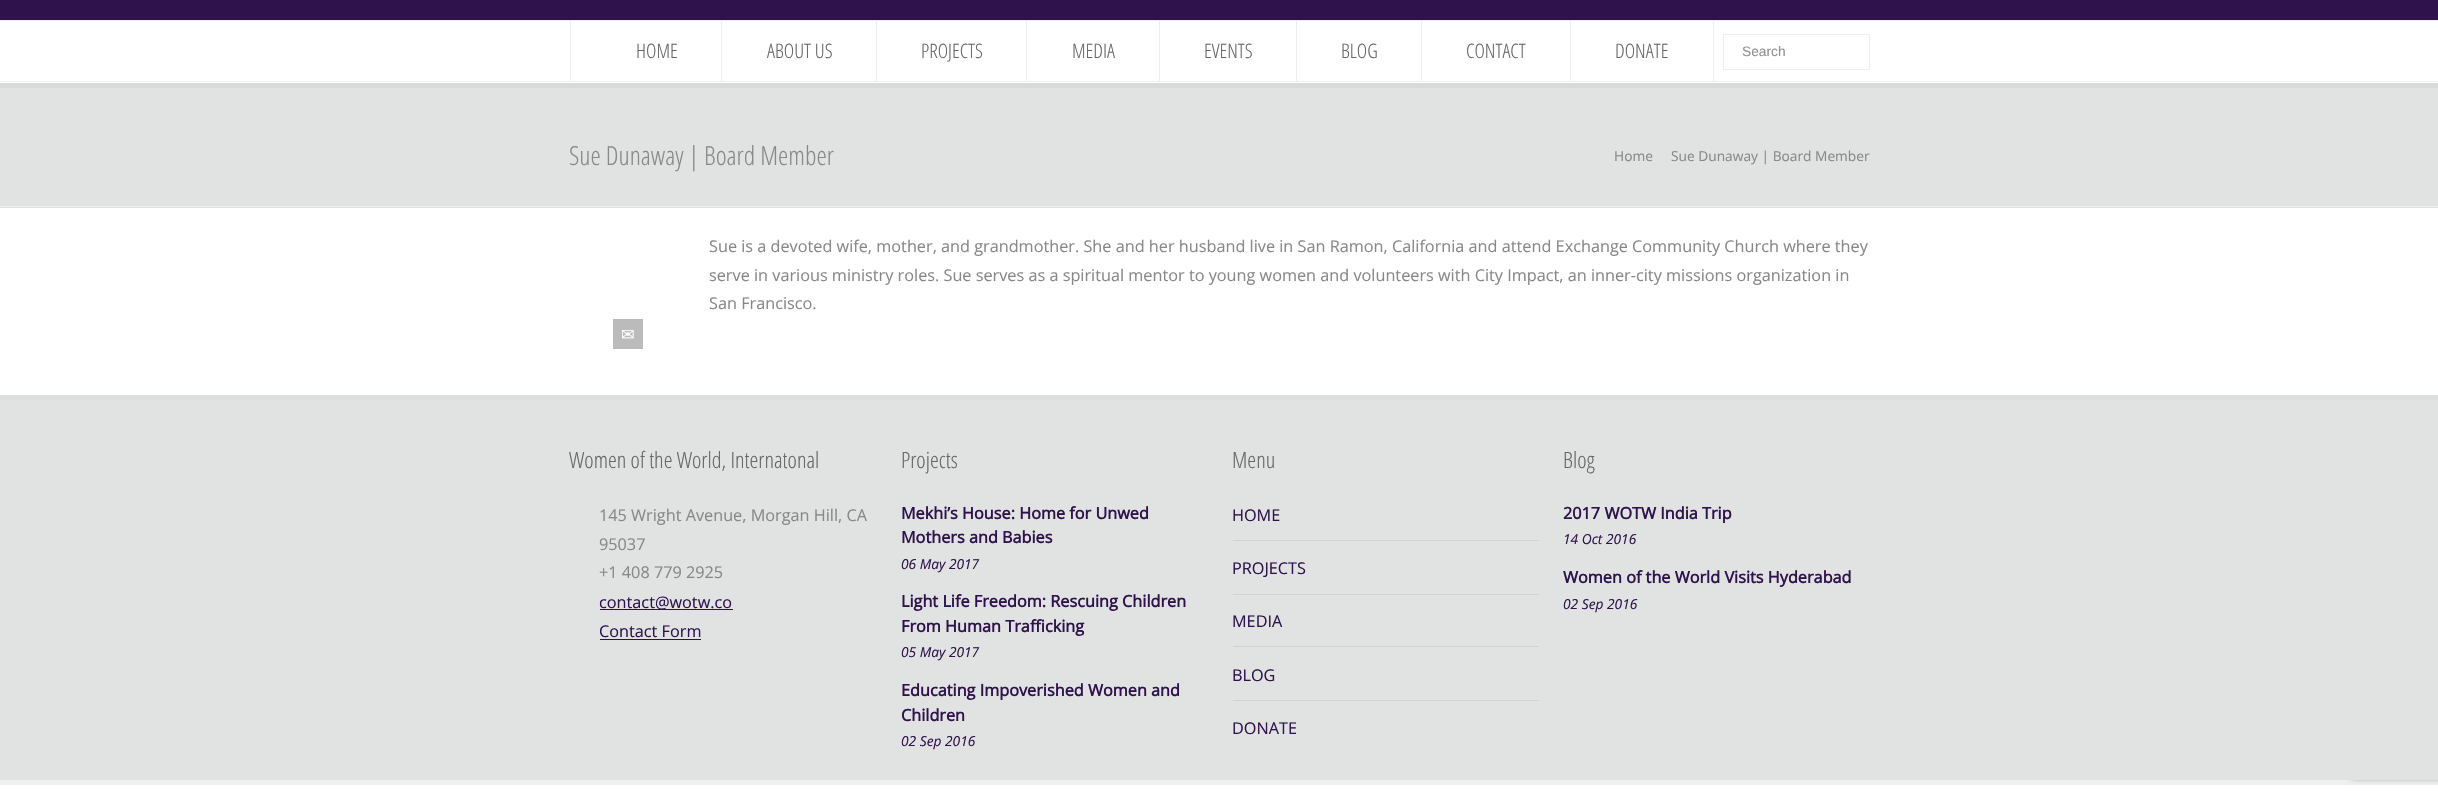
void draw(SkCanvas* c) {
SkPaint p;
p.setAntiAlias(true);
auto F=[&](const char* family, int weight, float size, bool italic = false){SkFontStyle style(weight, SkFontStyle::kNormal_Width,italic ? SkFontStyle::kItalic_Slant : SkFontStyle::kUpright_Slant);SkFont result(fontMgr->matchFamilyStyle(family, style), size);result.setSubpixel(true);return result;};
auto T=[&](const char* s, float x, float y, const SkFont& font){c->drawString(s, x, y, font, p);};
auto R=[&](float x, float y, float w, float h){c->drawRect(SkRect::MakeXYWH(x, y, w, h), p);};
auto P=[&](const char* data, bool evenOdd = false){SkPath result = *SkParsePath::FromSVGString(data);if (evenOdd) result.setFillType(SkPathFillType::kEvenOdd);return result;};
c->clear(0xffffffff);
p.setColor(0xff2f124c);
R(0,0,2438,20);
p.setColor(0xffd7dad8);
c->drawPath(P("M0 82v6h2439v-63v57z"),p);
p.setColor(0xffffffff);
R(0,82,2438,1);
p.setColor(0xffeeeeee);
R(0,20,2438,1);
R(0,81,2438,1);
R(721,21,1,60);
R(570,21,1,60);
auto f1 = F("Open Sans Condensed",300,20);
p.setColor(0xff666666);
T("HOME",636,58,f1);
p.setColor(0xffeeeeee);
R(876,21,1,60);
p.setColor(0xff666666);
T("ABOUT US",767,58,f1);
p.setColor(0xffeeeeee);
R(1026,21,1,60);
p.setColor(0xff666666);
T("PROJECTS",921,58,f1);
p.setColor(0xffeeeeee);
R(1159,21,1,60);
p.setColor(0xff666666);
T("MEDIA",1072,58,f1);
p.setColor(0xffeeeeee);
R(1296,21,1,60);
p.setColor(0xff666666);
T("EVENTS",1204,58,f1);
p.setColor(0xffeeeeee);
R(1421,21,1,60);
p.setColor(0xff666666);
T("BLOG",1341,58,f1);
p.setColor(0xffeeeeee);
R(1570,21,1,60);
p.setColor(0xff666666);
T("CONTACT",1466,58,f1);
p.setColor(0xffeeeeee);
R(1713,21,1,60);
p.setColor(0xff666666);
T("DONATE",1615,58,f1);
p.setStroke(true);
p.setStrokeWidth(1);
p.setColor(0xffeeeeee);
c->drawRect(SkRect::MakeXYWH(1723.5,34.5,146,35),p);
auto f2 = F("Liberation Sans",400,13.75);
p.setStroke(false);
p.setColor(0xff929292);
T("Search",1742,56,f2);
p.setColor(0xffe0e3e1);
R(0,88,2438,120);
p.setColor(0xffeeeeee);
R(0,206,2438,1);
auto f3 = F("Open Sans Condensed",300,26.25);
p.setColor(0xff888888);
T("Sue Dunaway | Board Member",569,165,f3);
auto f4 = F("Open Sans",400,13.75);
T("Home",1614,161,f4);
T("Sue Dunaway | Board Member",1671,161,f4);
auto f5 = F("Open Sans",400,16.25);
T("Sue is a devoted wife, mother, and grandmother. She and her husband live in San Ramon, California and attend Exchange Community Church where they",709,252,f5);
T("serve in various ministry roles. Sue serves as a spiritual mentor to young women and volunteers with City Impact, an inner-city missions organization in",709,281,f5);
T("San Francisco.",709,309,f5);
p.setColor(0xffbbbbbb);
R(613,319,30,30);
auto f6 = F("DejaVu Sans",400,16.25);
p.setColor(0xffffffff);
T("✉",621,340,f6);
p.setColor(0xfff0f0f0);
R(0,780,2438,5);
p.setColor(0xff808080);
p.setMaskFilter(SkMaskFilter::MakeBlur(kNormal_SkBlurStyle, 3));
c->drawRoundRect(SkRect::MakeXYWH(2351,703,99,75),2.5,2.5,p);
p.setMaskFilter(nullptr);
p.setColor(0xffe0e3e1);
R(0,400,2438,380);
p.setColor(0xffdcdedd);
R(0,395,2438,5);
auto f7 = F("Open Sans Condensed",300,22.5);
p.setColor(0xff666666);
T("Women of the World, Internatonal",569,468,f7);
p.setColor(0xff888888);
T("145 Wright Avenue, Morgan Hill, CA",599,521,f5);
T("95037",599,550,f5);
T("+1 408 779 2925",599,578,f5);
p.setColor(0xff2f124c);
R(600,609,133,1);
T("contact@wotw.co",599,608,f5);
T("Contact Form",599,637,f5);
R(600,639,101,1);
p.setColor(0xff666666);
T("Projects",901,468,f7);
auto f8 = F("Open Sans",700,16.25);
p.setColor(0xff2f124c);
T("Mekhi’s House: Home for Unwed",901,519,f8);
T("Mothers and Babies",901,543,f8);
auto f9 = F("Open Sans",400,13.75,true);
T("06 May 2017",901,569,f9);
T("Light Life Freedom: Rescuing Children",901,607,f8);
T("From Human Trafficking",901,632,f8);
T("05 May 2017",901,657,f9);
T("Educating Impoverished Women and",901,696,f8);
T("Children",901,721,f8);
T("02 Sep 2016",901,746,f9);
p.setColor(0xff666666);
T("Menu",1232,468,f7);
p.setColor(0xffd0d3d1);
R(1233,540,306,1);
p.setColor(0xff2f124c);
T("HOME",1232,521,f5);
p.setColor(0xffd0d3d1);
R(1233,594,306,1);
p.setColor(0xff2f124c);
T("PROJECTS",1232,574,f5);
p.setColor(0xffd0d3d1);
R(1233,646,306,1);
p.setColor(0xff2f124c);
T("MEDIA",1232,627,f5);
p.setColor(0xffd0d3d1);
R(1233,700,306,1);
p.setColor(0xff2f124c);
T("BLOG",1232,681,f5);
T("DONATE",1232,734,f5);
p.setColor(0xff666666);
T("Blog",1563,468,f7);
p.setColor(0xff2f124c);
T("2017 WOTW India Trip",1563,519,f8);
T("14 Oct 2016",1563,544,f9);
T("Women of the World Visits Hyderabad",1563,583,f8);
T("02 Sep 2016",1563,609,f9);
}
